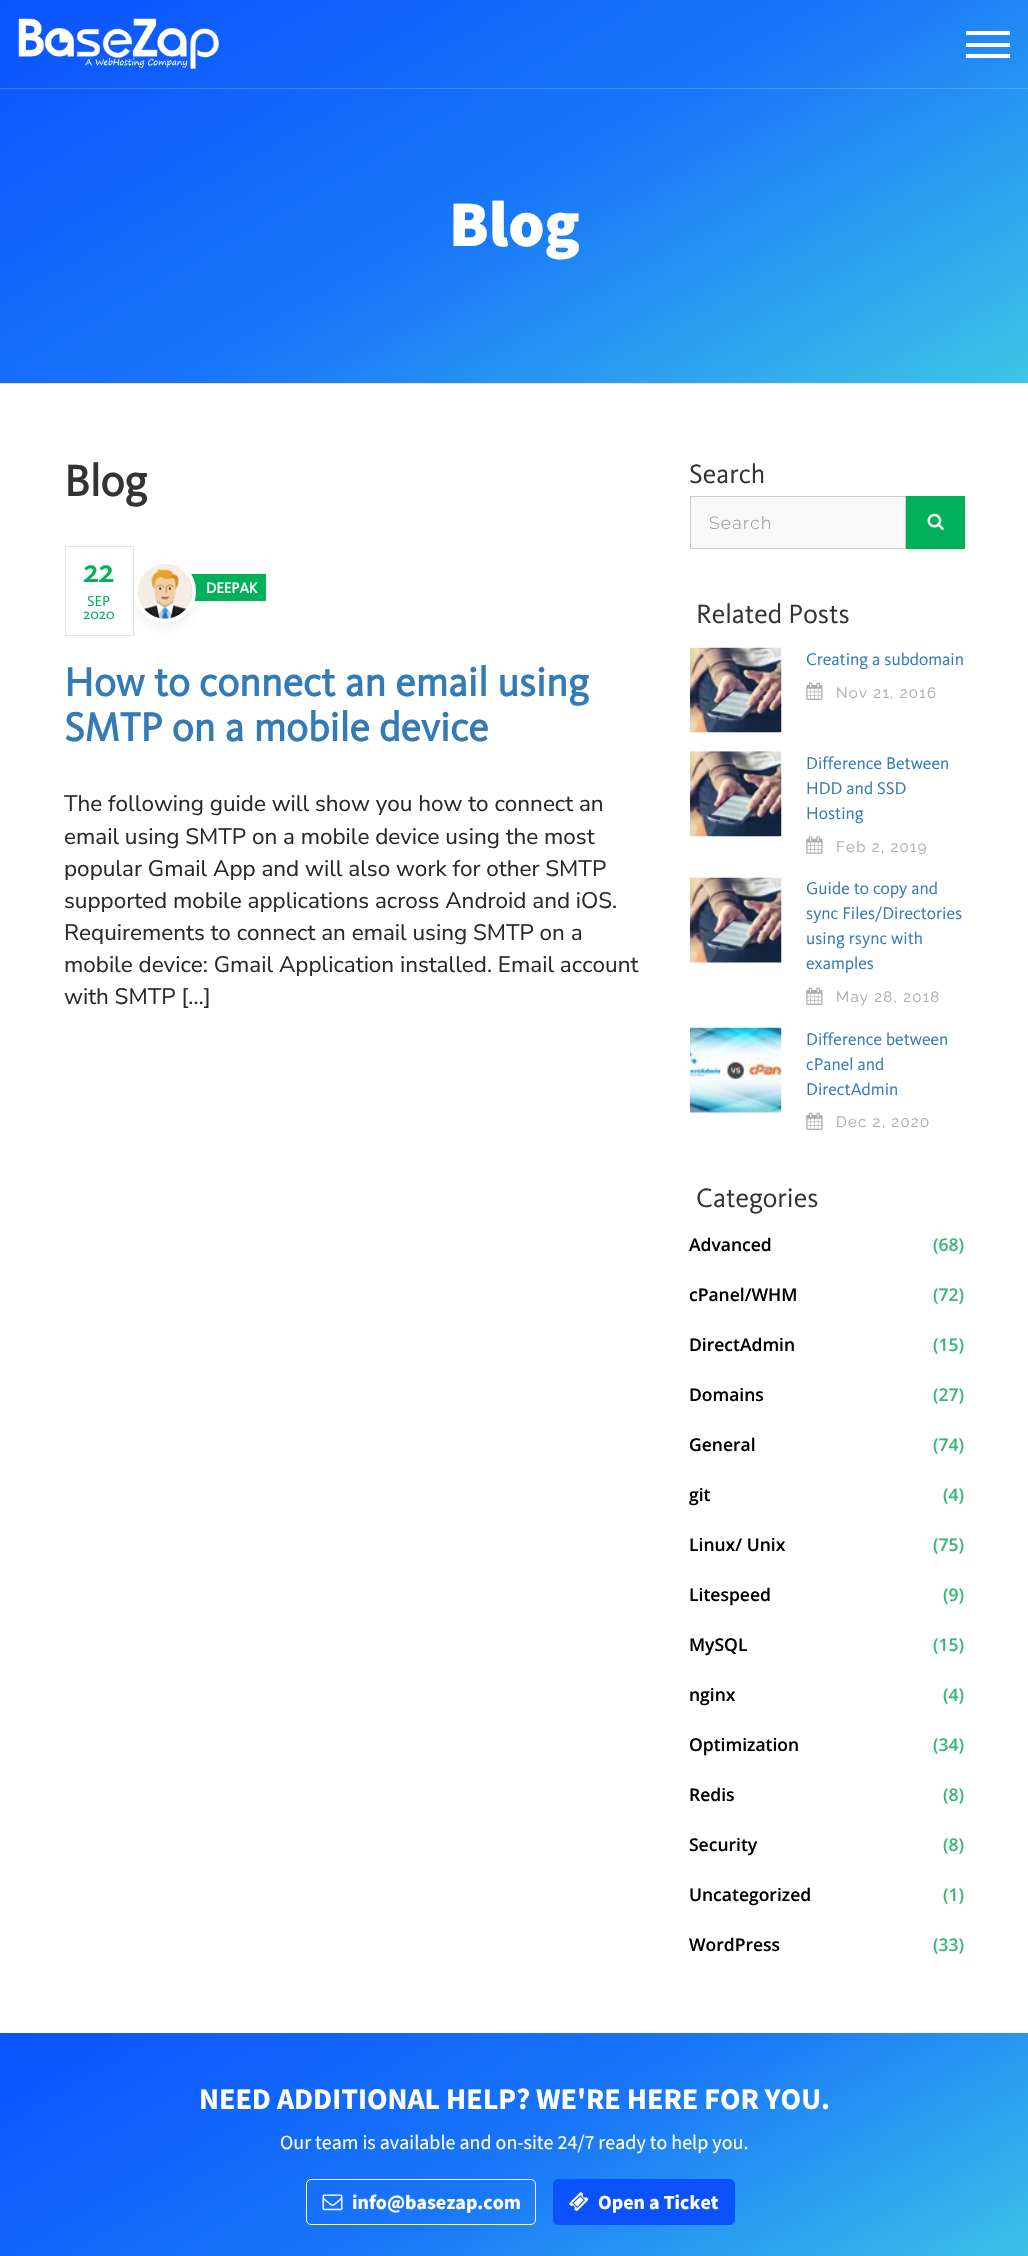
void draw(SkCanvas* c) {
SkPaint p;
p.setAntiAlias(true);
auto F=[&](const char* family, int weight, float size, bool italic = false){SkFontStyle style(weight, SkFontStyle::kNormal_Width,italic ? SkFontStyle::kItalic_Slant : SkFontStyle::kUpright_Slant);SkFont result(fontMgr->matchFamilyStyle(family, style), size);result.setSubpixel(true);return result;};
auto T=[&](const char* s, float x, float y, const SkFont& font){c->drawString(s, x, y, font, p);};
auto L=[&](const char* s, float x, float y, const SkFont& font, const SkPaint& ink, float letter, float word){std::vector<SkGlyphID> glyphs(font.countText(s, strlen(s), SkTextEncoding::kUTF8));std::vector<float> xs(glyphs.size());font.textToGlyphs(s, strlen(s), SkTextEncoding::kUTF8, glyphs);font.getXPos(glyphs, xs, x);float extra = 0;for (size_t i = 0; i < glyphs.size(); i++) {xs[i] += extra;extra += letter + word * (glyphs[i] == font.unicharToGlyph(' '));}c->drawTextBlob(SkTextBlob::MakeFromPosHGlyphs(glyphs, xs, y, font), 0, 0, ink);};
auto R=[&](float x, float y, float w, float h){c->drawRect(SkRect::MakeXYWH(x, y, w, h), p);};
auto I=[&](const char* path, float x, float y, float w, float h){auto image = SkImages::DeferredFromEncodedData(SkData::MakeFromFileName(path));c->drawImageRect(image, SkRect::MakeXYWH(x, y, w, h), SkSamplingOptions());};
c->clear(0xffffffff);
{
const SkColor colors[] = {0xff3dc6e6,0xff1976f9,0xff0b53ff};
const float stops[] = {0,.49,1};
const SkPoint ends[] = {{726,557}, {303,-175}};
p.setShader(SkGradientShader::MakeLinear(ends, colors, stops, 3, SkTileMode::kClamp));
p.setAlpha(255);
}
R(0,0,1028,383);
I("1.png",18,18,201,51);
p.setShader(nullptr);
p.setColor(0xffffffff);
R(966,31,44,4);
R(966,43,44,4);
R(966,54,44,4);
{
const SkColor colors[] = {0xff64d1eb,0xff4791fa,0xff3c75ff};
const float stops[] = {0,.49,1};
const SkPoint ends[] = {{726,557}, {303,-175}};
p.setShader(SkGradientShader::MakeLinear(ends, colors, stops, 3, SkTileMode::kClamp));
p.setAlpha(255);
}
R(0,88,1028,1);
p.setShader(nullptr);
p.setColor(0xffe6e6e6);
R(0,383,1028,1);
auto f1 = F("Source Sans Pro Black",900,65);
p.setColor(0xffffffff);
T("Blog",449,246,f1);
auto f2 = F("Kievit",700,45);
p.setColor(0xff333333);
T("Blog",64,496,f2);
p.setStroke(true);
p.setStrokeWidth(1);
p.setColor(0xffe2e2e2);
c->drawRect(SkRect::MakeXYWH(65.5,546.5,68,89),p);
auto f3 = F("Kievit",700,32);
p.setStroke(false);
p.setColor(0xff00b159);
T("22",83,582,f3);
auto f4 = F("Kievit",400,15);
T("SEP",87,606,f4);
T("2020",83,619,f4);
R(188,574,78,27);
p.setColor(0x1443414e);
p.setMaskFilter(SkMaskFilter::MakeBlur(kNormal_SkBlurStyle, 5));
c->drawRoundRect(SkRect::MakeXYWH(134,565,62,63),31,31,p);
p.setMaskFilter(nullptr);
p.setStroke(true);
p.setStrokeWidth(4);
p.setColor(0xffffffff);
c->drawRoundRect(SkRect::MakeXYWH(136,562,58,59),29,29,p);
I("2.png",137,564,56,55);
auto f5 = F("Kievit",700,15);
p.setStroke(false);
T("DEEPAK",206,593,f5);
auto f6 = F("Kievit",700,41.25);
p.setColor(0xff337ab7);
T("How to connect an email using",64,696,f6);
T("SMTP on a mobile device",64,741,f6);
auto f7 = F("Nunito Sans",400,22.5);
p.setColor(0xff292929);
T("The following guide will show you how to connect an",64,811,f7);
T("email using SMTP on a mobile device using the most",64,844,f7);
T("popular Gmail App and will also work for other SMTP",64,876,f7);
T("supported mobile applications across Android and iOS.",64,908,f7);
T("Requirements to connect an email using SMTP on a",64,940,f7);
T("mobile device: Gmail Application installed. Email account",64,972,f7);
T("with SMTP […]",64,1004,f7);
auto f8 = F("Kievit",400,27.5);
p.setColor(0xff333333);
T("Search",689,483,f8);
p.setColor(0xfff8f8f8);
c->drawRect(SkRect::MakeXYWH(690.5,496.5,215,52),p);
p.setStroke(true);
p.setStrokeWidth(1);
p.setColor(0xffcccccc);
c->drawRect(SkRect::MakeXYWH(690.5,496.5,215,52),p);
auto f9 = F("Raleway",300,17.5);
p.setStroke(false);
p.setColor(0xff999999);
L("Search",709,529,f9,p,1.25,0);
p.setColor(0xff00b159);
R(906,496,59,53);
I("3.png",927,513,17,17);
p.setColor(0xff333333);
T("Related Posts",696,623,f8);
I("4.png",690,647,92,86);
auto f10 = F("Kievit",400,17.5);
p.setColor(0xff337ab7);
T("Creating a subdomain",806,665,f10);
I("5.png",806,682,17,18);
auto f11 = F("Raleway",400,15);
p.setColor(0xffacacac);
L("Nov 21, 2016",836,698,f11,p,1.25,0);
I("6.png",690,751,92,86);
p.setColor(0xff337ab7);
T("Difference Between",806,769,f10);
T("HDD and SSD",806,794,f10);
T("Hosting",806,819,f10);
I("7.png",806,836,17,18);
p.setColor(0xffacacac);
L("Feb 2, 2019",836,852,f11,p,1.25,0);
I("8.png",690,877,92,86);
p.setColor(0xff337ab7);
T("Guide to copy and",806,894,f10);
T("sync Files/Directories",806,919,f10);
T("using rsync with",806,944,f10);
T("examples",806,969,f10);
I("5.png",806,987,17,18);
p.setColor(0xffacacac);
L("May 28, 2018",836,1002,f11,p,1.25,0);
I("9.png",690,1027,92,86);
p.setColor(0xff337ab7);
T("Difference between",806,1045,f10);
T("cPanel and",806,1070,f10);
T("DirectAdmin",806,1095,f10);
I("5.png",806,1112,17,18);
p.setColor(0xffacacac);
L("Dec 2, 2020",836,1127,f11,p,1.25,0);
p.setColor(0xff333333);
T("Categories",696,1207,f8);
auto f12 = F("Open Sans",600,17.5);
p.setColor(0xff000000);
T("Advanced",689,1251,f12);
p.setColor(0xff38b874);
T("(68)",933,1251,f12);
p.setColor(0xff000000);
T("cPanel/WHM",689,1301,f12);
p.setColor(0xff38b874);
T("(72)",933,1301,f12);
p.setColor(0xff000000);
T("DirectAdmin",689,1351,f12);
p.setColor(0xff38b874);
T("(15)",933,1351,f12);
p.setColor(0xff000000);
T("Domains",689,1401,f12);
p.setColor(0xff38b874);
T("(27)",933,1401,f12);
p.setColor(0xff000000);
T("General",689,1451,f12);
p.setColor(0xff38b874);
T("(74)",933,1451,f12);
p.setColor(0xff000000);
T("git",689,1501,f12);
p.setColor(0xff38b874);
T("(4)",943,1501,f12);
p.setColor(0xff000000);
T("Linux/ Unix",689,1551,f12);
p.setColor(0xff38b874);
T("(75)",933,1551,f12);
p.setColor(0xff000000);
T("Litespeed",689,1601,f12);
p.setColor(0xff38b874);
T("(9)",943,1601,f12);
p.setColor(0xff000000);
T("MySQL",689,1651,f12);
p.setColor(0xff38b874);
T("(15)",933,1651,f12);
p.setColor(0xff000000);
T("nginx",689,1701,f12);
p.setColor(0xff38b874);
T("(4)",943,1701,f12);
p.setColor(0xff000000);
T("Optimization",689,1751,f12);
p.setColor(0xff38b874);
T("(34)",933,1751,f12);
p.setColor(0xff000000);
T("Redis",689,1801,f12);
p.setColor(0xff38b874);
T("(8)",943,1801,f12);
p.setColor(0xff000000);
T("Security",689,1851,f12);
p.setColor(0xff38b874);
T("(8)",943,1851,f12);
p.setColor(0xff000000);
T("Uncategorized",689,1901,f12);
p.setColor(0xff38b874);
T("(1)",943,1901,f12);
p.setColor(0xff000000);
T("WordPress",689,1951,f12);
p.setColor(0xff38b874);
T("(33)",933,1951,f12);
{
const SkColor colors[] = {0xff3dc6e6,0xff1976f9,0xff0b53ff};
const float stops[] = {0,.49,1};
const SkPoint ends[] = {{695,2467}, {333,1840}};
p.setShader(SkGradientShader::MakeLinear(ends, colors, stops, 3, SkTileMode::kClamp));
p.setAlpha(255);
}
R(0,2033,1028,223);
auto f13 = F("Source Sans Pro",700,30);
p.setShader(nullptr);
p.setColor(0xffffffff);
T("NEED ADDITIONAL HELP? WE'RE HERE FOR YOU.",199,2109,f13);
auto f14 = F("Source Sans Pro",400,20);
T("Our team is available and on-site 24/7 ready to help you.",280,2149,f14);
p.setStroke(true);
c->drawRoundRect(SkRect::MakeXYWH(306.5,2179.5,229,45),4.5,4.5,p);
I("10.png",322,2194,21,17);
auto f15 = F("Source Sans Pro",700,20);
p.setStroke(false);
T("info@basezap.com",352,2209,f15);
p.setColor(0xff0b52fc);
c->drawRoundRect(SkRect::MakeXYWH(553.5,2179.5,181,45),4.5,4.5,p);
p.setStroke(true);
p.setColor(0xff0b52fd);
c->drawRoundRect(SkRect::MakeXYWH(553.5,2179.5,181,45),4.5,4.5,p);
I("11.png",569,2192,20,19);
p.setStroke(false);
p.setColor(0xffffffff);
T("Open a Ticket",598,2209,f15);
}
